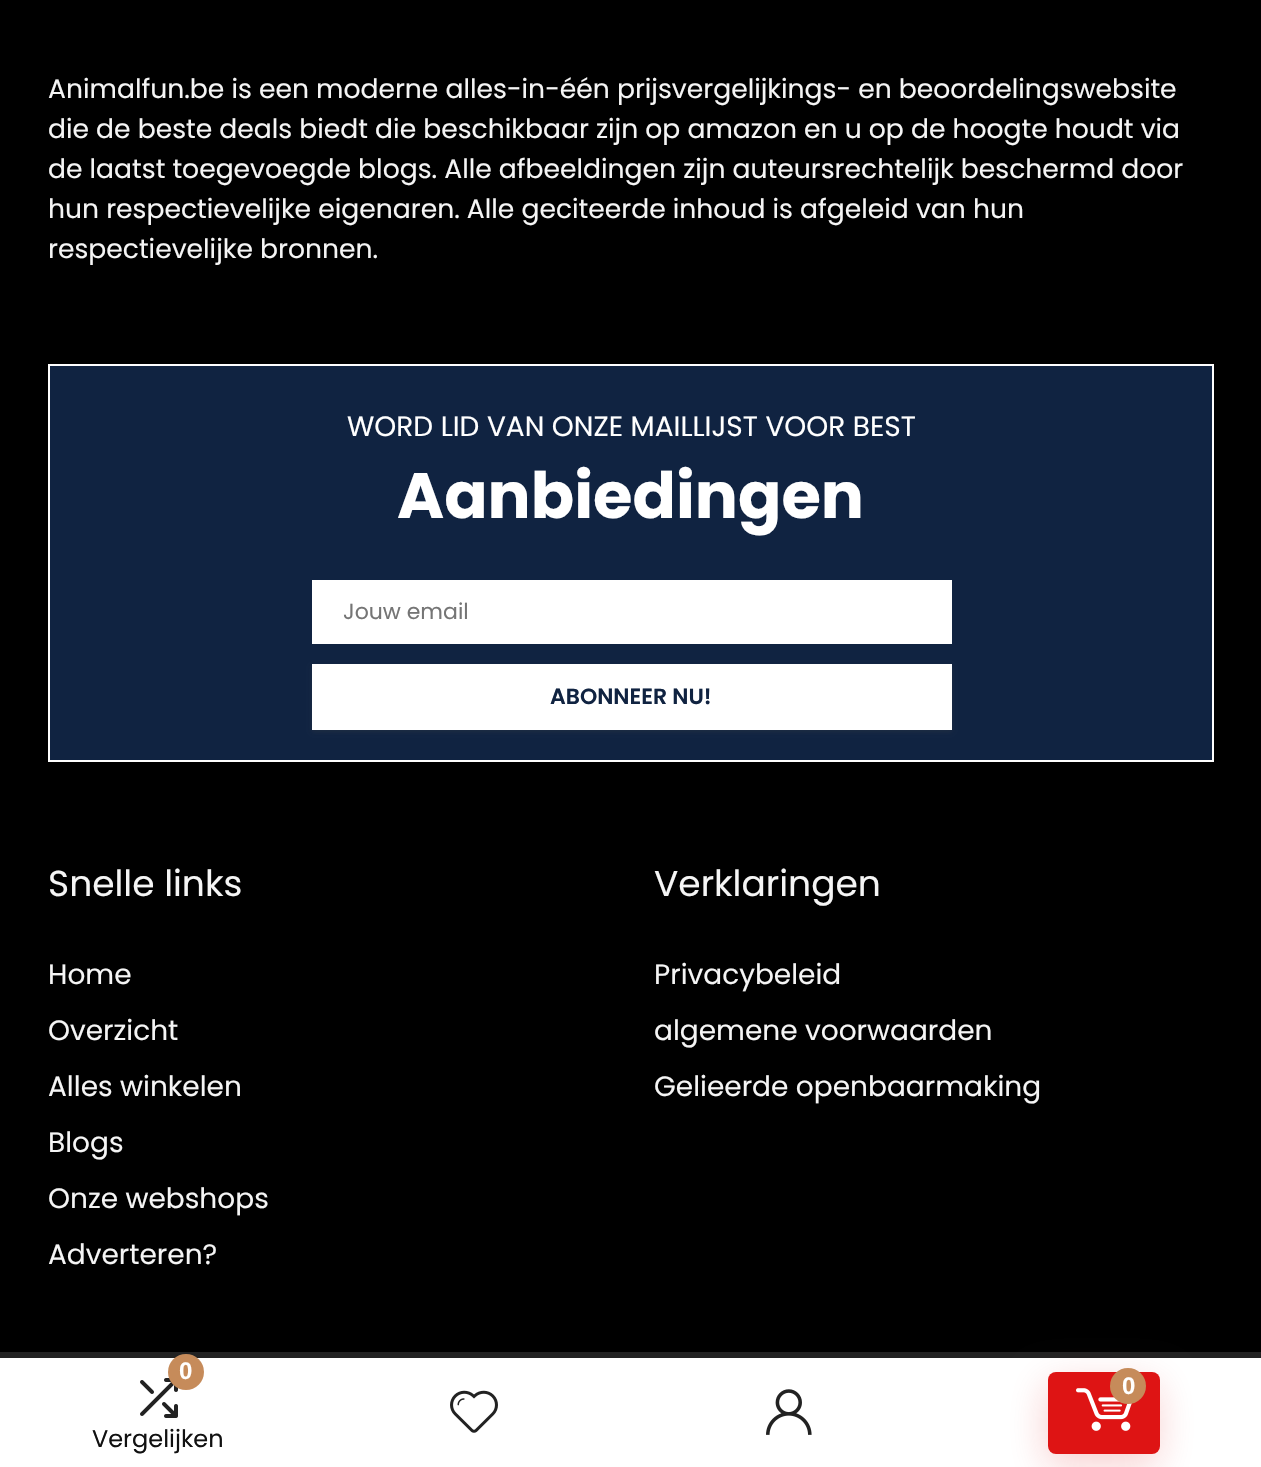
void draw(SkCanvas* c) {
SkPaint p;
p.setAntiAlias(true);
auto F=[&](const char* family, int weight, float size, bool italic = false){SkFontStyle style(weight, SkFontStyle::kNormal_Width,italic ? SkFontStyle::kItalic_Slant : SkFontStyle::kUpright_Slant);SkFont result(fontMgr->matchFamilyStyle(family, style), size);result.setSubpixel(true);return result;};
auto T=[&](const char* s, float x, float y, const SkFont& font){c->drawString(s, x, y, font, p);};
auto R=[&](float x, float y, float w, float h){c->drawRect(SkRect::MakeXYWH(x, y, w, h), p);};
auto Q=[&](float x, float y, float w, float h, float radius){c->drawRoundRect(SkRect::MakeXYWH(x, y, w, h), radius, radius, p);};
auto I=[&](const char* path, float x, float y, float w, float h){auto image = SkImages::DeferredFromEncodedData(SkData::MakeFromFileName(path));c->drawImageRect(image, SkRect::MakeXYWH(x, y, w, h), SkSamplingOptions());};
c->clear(0xff000000);
auto f1 = F("Poppins",400,26.6);
p.setColor(0xfff5f5f5);
T("Animalfun.be is een moderne alles-in-één prijsvergelijkings- en beoordelingswebsite",48,98,f1);
T("die de beste deals biedt die beschikbaar zijn op amazon en u op de hoogte houdt via",48,138,f1);
T("de laatst toegevoegde blogs. Alle afbeeldingen zijn auteursrechtelijk beschermd door",48,178,f1);
T("hun respectievelijke eigenaren. Alle geciteerde inhoud is afgeleid van hun",48,218,f1);
T("respectievelijke bronnen.",48,258,f1);
p.setColor(0xff102341);
c->drawRect(SkRect::MakeXYWH(49,365,1164,396),p);
p.setStroke(true);
p.setStrokeWidth(2);
p.setColor(0xffffffff);
c->drawRect(SkRect::MakeXYWH(49,365,1164,396),p);
auto f2 = F("Poppins",400,28);
p.setStroke(false);
T("WORD LID VAN ONZE MAILLIJST VOOR BEST",347,436,f2);
auto f3 = F("Poppins",700,64);
T("Aanbiedingen",397,518,f3);
R(312,580,640,64);
auto f4 = F("Poppins",400,22);
p.setColor(0xff757575);
T("Jouw email",343,619,f4);
p.setColor(0x4d3c4043);
p.setMaskFilter(SkMaskFilter::MakeBlur(kNormal_SkBlurStyle, 2));
c->drawRect(SkRect::MakeXYWH(312,666,640,66),p);
p.setMaskFilter(nullptr);
p.setColor(0xffffffff);
R(312,664,640,66);
auto f5 = F("Poppins",600,22);
p.setColor(0xff102341);
T("ABONNEER NU!",550,704,f5);
auto f6 = F("Poppins",400,36);
p.setColor(0xfff5f5f5);
T("Snelle links",48,896,f6);
T("Home",48,984,f2);
T("Overzicht",48,1040,f2);
T("Alles winkelen",48,1096,f2);
T("Blogs",48,1152,f2);
T("Onze webshops",48,1208,f2);
T("Adverteren?",48,1264,f2);
T("Verklaringen",654,896,f6);
T("Privacybeleid",654,984,f2);
T("algemene voorwaarden",654,1040,f2);
T("Gelieerde openbaarmaking",654,1096,f2);
p.setColor(0xff222222);
R(0,1352,1261,6);
p.setColor(0xffffffff);
R(0,1358,1261,109);
I("1.png",140,1378,38,40);
p.setColor(0xffc68b5a);
c->drawCircle(186,1372,18,p);
auto f7 = F("Liberation Sans",700,24);
p.setColor(0xffffffff);
T("0",179,1379,f7);
auto f8 = F("Poppins",400,24);
p.setColor(0xff111111);
T("Vergelijken",92,1447,f8);
p.setColor(0x33de1414);
p.setMaskFilter(SkMaskFilter::MakeBlur(kNormal_SkBlurStyle, 19));
c->drawRoundRect(SkRect::MakeXYWH(1046,1384,112,82),8,8,p);
p.setMaskFilter(nullptr);
p.setColor(0xffde1414);
Q(1048,1372,112,82,8);
I("2.png",1076,1388,56,43);
p.setColor(0xffc68b5a);
c->drawCircle(1128,1386,18,p);
p.setColor(0xffffffff);
T("0",1122,1394,f7);
I("3.png",450,1390,48,43);
I("4.png",766,1389,46,46);
}
